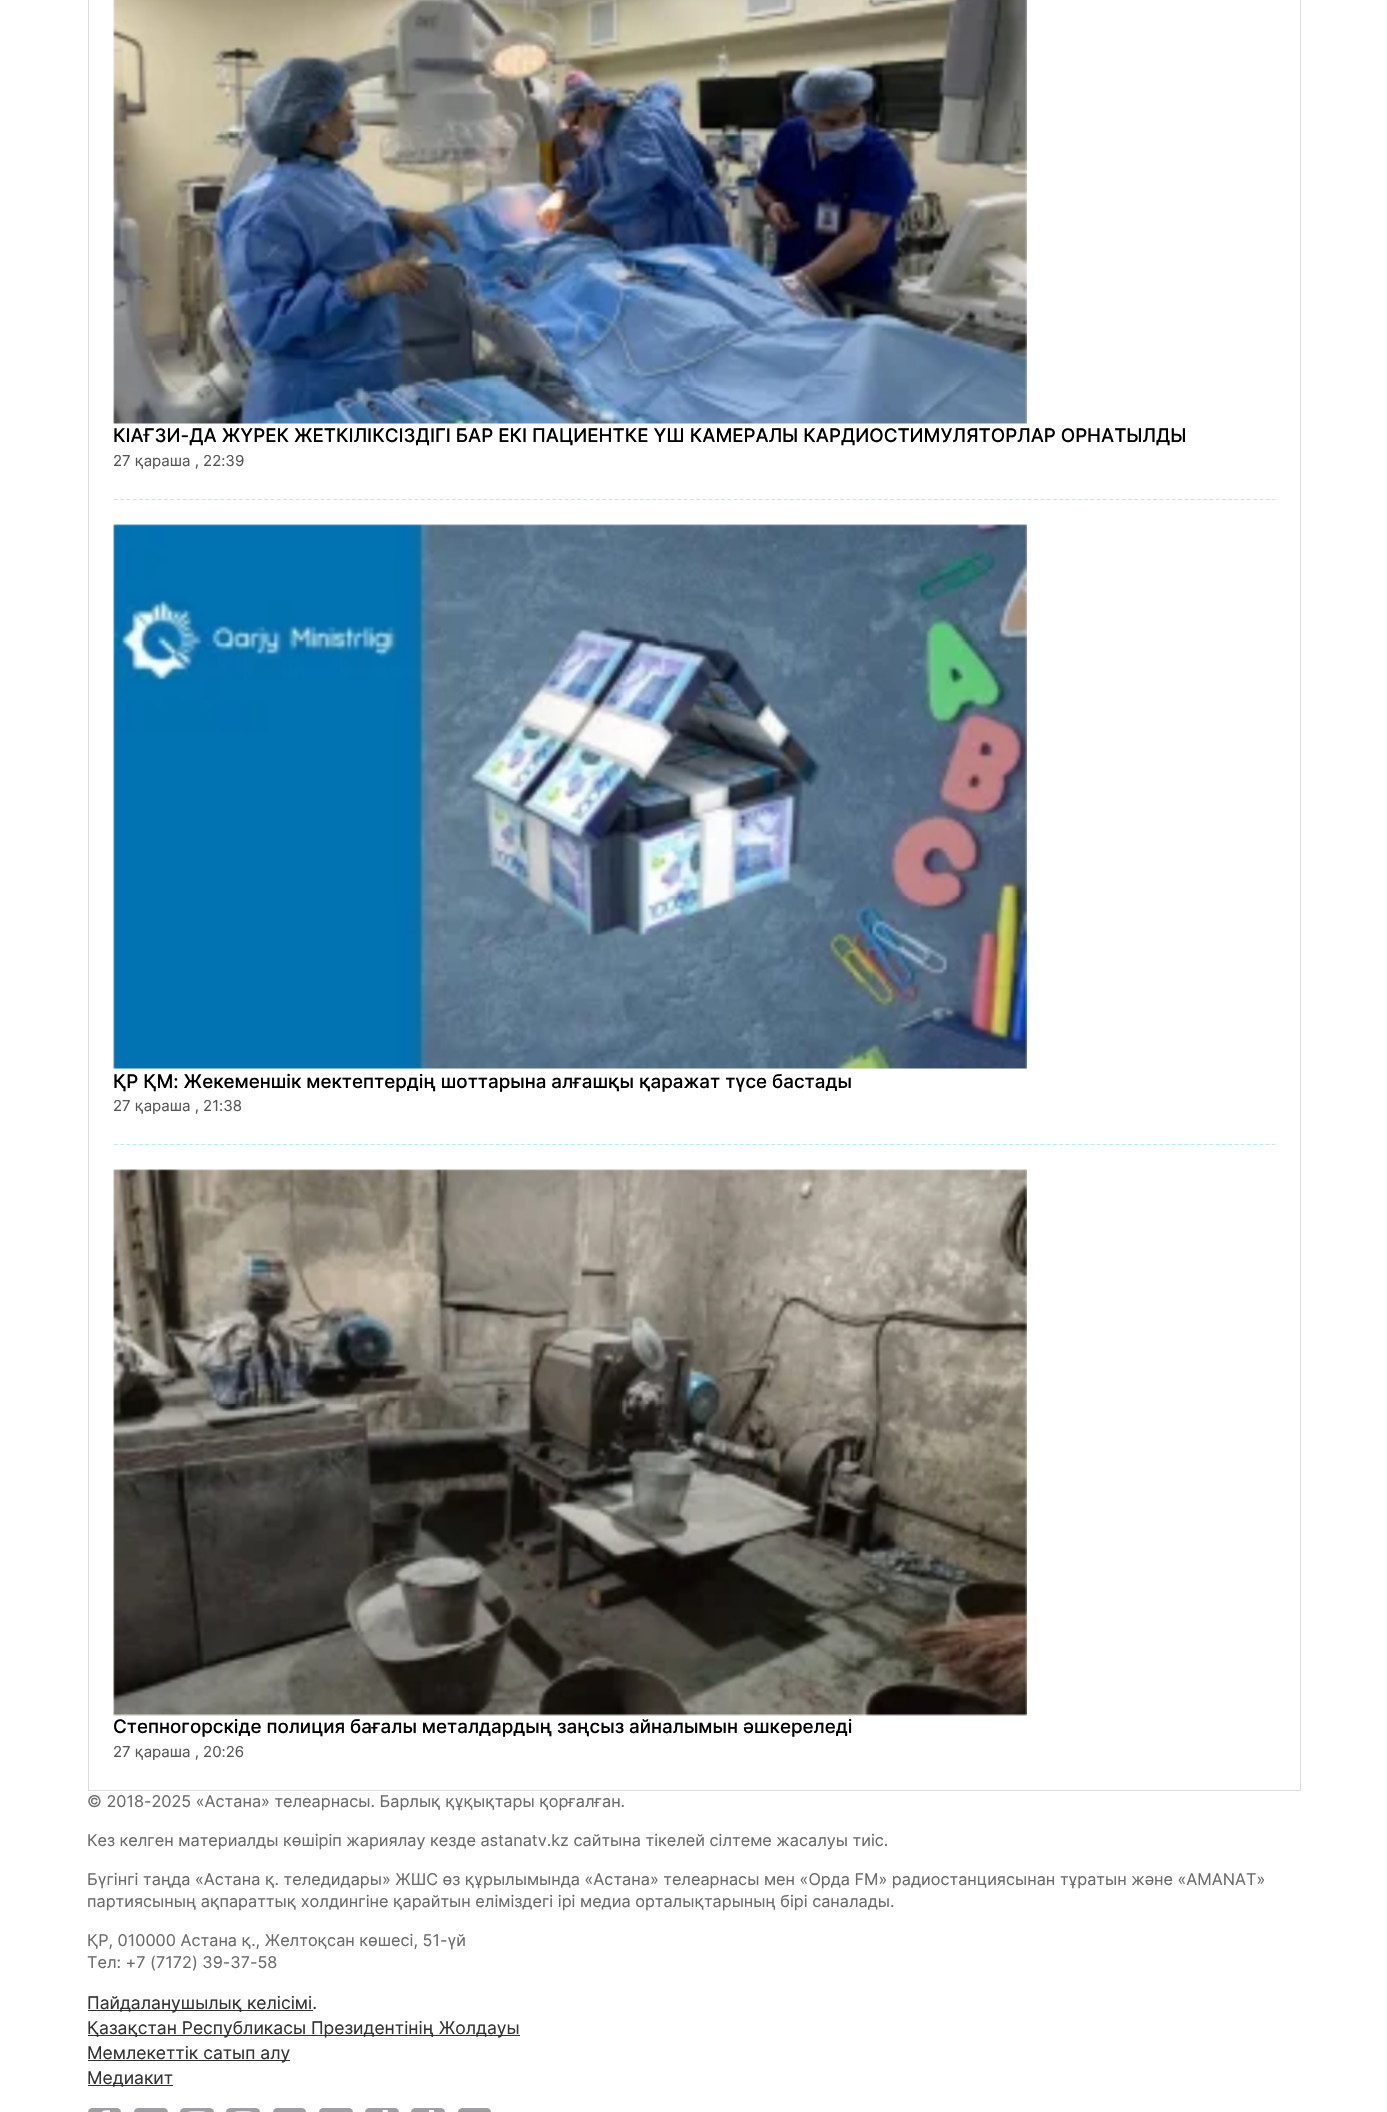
void draw(SkCanvas* c) {
SkPaint p;
p.setAntiAlias(true);
auto F=[&](const char* family, int weight, float size, bool italic = false){SkFontStyle style(weight, SkFontStyle::kNormal_Width,italic ? SkFontStyle::kItalic_Slant : SkFontStyle::kUpright_Slant);SkFont result(fontMgr->matchFamilyStyle(family, style), size);result.setSubpixel(true);return result;};
auto T=[&](const char* s, float x, float y, const SkFont& font){c->drawString(s, x, y, font, p);};
auto R=[&](float x, float y, float w, float h){c->drawRect(SkRect::MakeXYWH(x, y, w, h), p);};
auto Q=[&](float x, float y, float w, float h, float radius){c->drawRoundRect(SkRect::MakeXYWH(x, y, w, h), radius, radius, p);};
auto I=[&](const char* path, float x, float y, float w, float h){auto image = SkImages::DeferredFromEncodedData(SkData::MakeFromFileName(path));c->drawImageRect(image, SkRect::MakeXYWH(x, y, w, h), SkSamplingOptions());};
auto P=[&](const char* data, bool evenOdd = false){SkPath result = *SkParsePath::FromSVGString(data);if (evenOdd) result.setFillType(SkPathFillType::kEvenOdd);return result;};
c->clear(0xffffffff);
p.setStroke(true);
p.setStrokeWidth(1);
p.setColor(0xffdddddd);
c->drawRect(SkRect::MakeXYWH(88.5,-.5,1212,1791),p);
p.setStrokeWidth(1.2);
p.setColor(0xffbbeaea);
p.setPathEffect(SkDashPathEffect::Make({{3.75f,2.51f}}, 0));
c->drawPath(P("M114 499.5h1161"),p);
p.setPathEffect(nullptr);
I("1.png",113,0,914,424);
auto f1 = F("Inter",500,18.75);
p.setStroke(false);
p.setColor(0xff000000);
T("КІАҒЗИ-ДА ЖҮРЕК ЖЕТКІЛІКСІЗДІГІ БАР ЕКІ ПАЦИЕНТКЕ ҮШ КАМЕРАЛЫ КАРДИОСТИМУЛЯТОРЛАР ОРНАТЫЛДЫ",113,442,f1);
auto f2 = F("Inter",400,15);
p.setColor(0xff555555);
T("27 қараша , 22:39",113,466,f2);
p.setStroke(true);
p.setColor(0xffbbeaea);
p.setPathEffect(SkDashPathEffect::Make({{3.75f,2.51f}}, 0));
c->drawPath(P("M114 1144.5h1161"),p);
p.setPathEffect(nullptr);
I("2.png",113,524,914,545);
p.setStroke(false);
p.setColor(0xff000000);
T("ҚР ҚМ: Жекеменшік мектептердің шоттарына алғашқы қаражат түсе бастады",113,1088,f1);
p.setColor(0xff555555);
T("27 қараша , 21:38",113,1111,f2);
I("3.png",113,1169,914,547);
p.setColor(0xff000000);
T("Степногорскіде полиция бағалы металдардың заңсыз айналымын әшкереледі",113,1733,f1);
p.setColor(0xff555555);
T("27 қараша , 20:26",113,1757,f2);
auto f3 = F("Inter",400,16.25);
p.setColor(0xff6b6b6b);
T("© 2018-2025 «Астана» телеарнасы. Барлық құқықтары қорғалған.",87,1807,f3);
T("Кез келген материалды көшіріп жариялау кезде astanatv.kz сайтына тікелей сілтеме жасалуы тиіс.",87,1846,f3);
T("Бүгінгі таңда «Астана қ. теледидары» ЖШС өз құрылымында «Астана» телеарнасы мен «Орда FM» радиостанциясынан тұратын және «AMANAT»",87,1885,f3);
T("партиясының ақпараттық холдингіне қарайтын еліміздегі ірі медиа орталықтарының бірі саналады.",87,1907,f3);
T("ҚР, 010000 Астана қ., Желтоқсан көшесі, 51-үй",87,1946,f3);
T("Тел: +7 (7172) 39-37-58",87,1968,f3);
p.setColor(0xff333333);
R(88,2010,225,1);
auto f4 = F("Inter",400,17.5);
T("Пайдаланушылық келісімі.",87,2009,f4);
R(88,2035,432,1);
T("Қазақстан Республикасы Президентінің Жолдауы",87,2034,f4);
R(88,2060,202,1);
T("Мемлекеттік сатып алу",87,2059,f4);
R(88,2085,85,1);
T("Медиакит",87,2084,f4);
p.setColor(0xff9fa0a5);
Q(88,2108,33,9,5);
I("4.png",102,2110,8,2);
Q(134,2108,34,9,5);
Q(180,2108,34,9,5);
I("5.png",188,2111,18,1);
Q(226,2108,34,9,5);
I("6.png",234,2111,18,1);
Q(273,2108,33,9,5);
Q(319,2108,34,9,5);
Q(365,2108,34,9,5);
I("7.png",382,2110,6,2);
Q(411,2108,34,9,5);
I("8.png",429,2110,6,2);
Q(458,2108,33,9,5);
I("9.png",458,2111,32,1);
}
